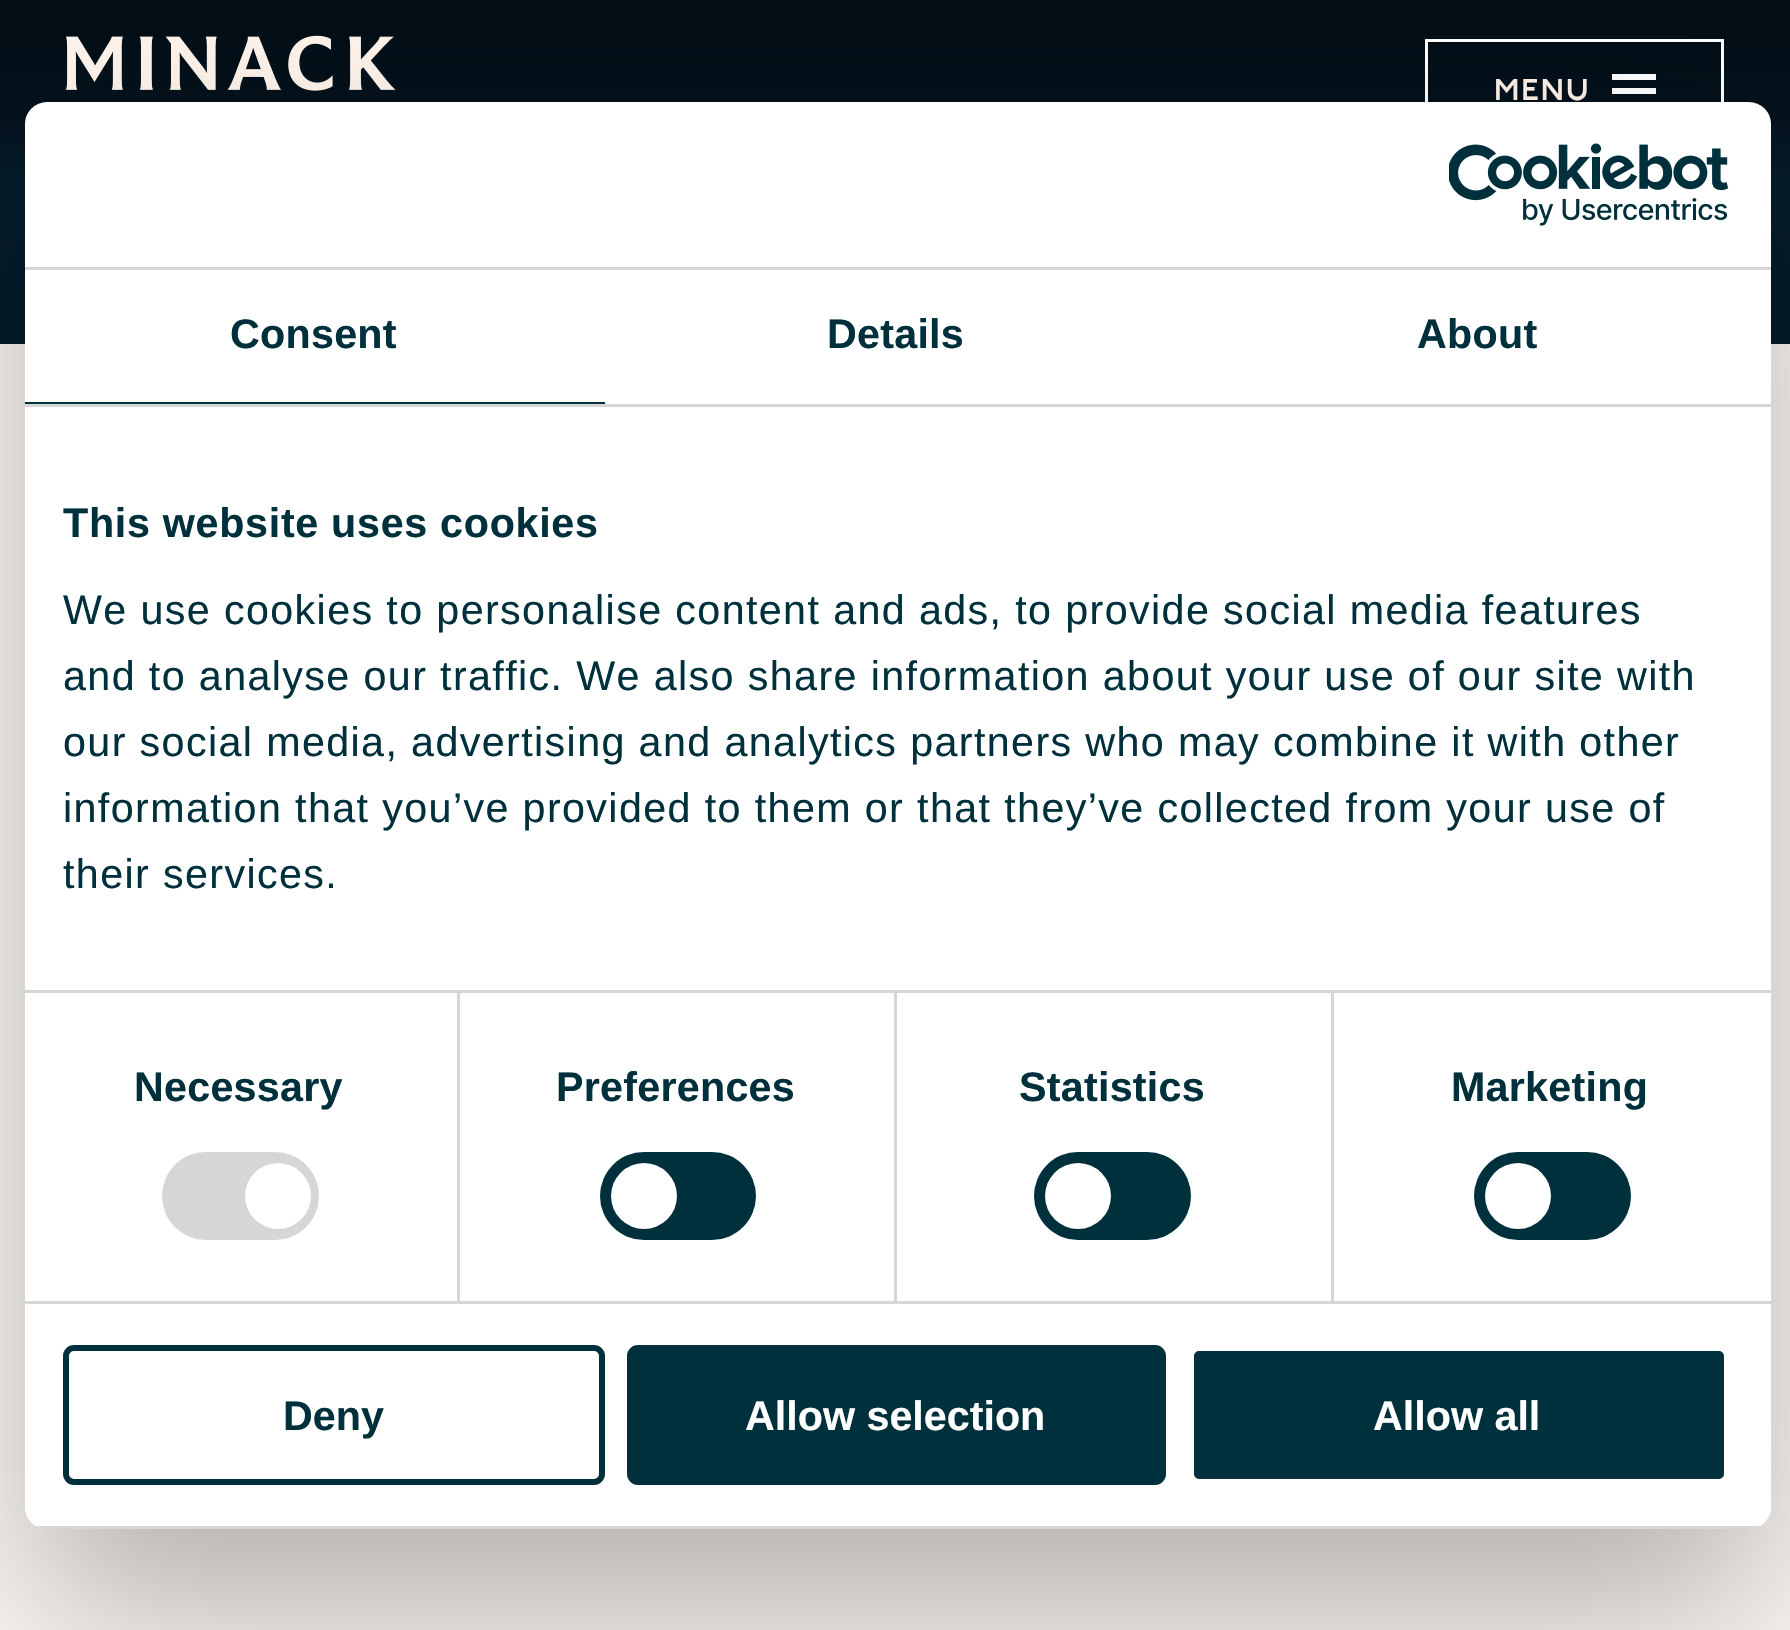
void draw(SkCanvas* c) {
SkPaint p;
p.setAntiAlias(true);
auto F=[&](const char* family, int weight, float size, bool italic = false){SkFontStyle style(weight, SkFontStyle::kNormal_Width,italic ? SkFontStyle::kItalic_Slant : SkFontStyle::kUpright_Slant);SkFont result(fontMgr->matchFamilyStyle(family, style), size);result.setSubpixel(true);return result;};
auto T=[&](const char* s, float x, float y, const SkFont& font){c->drawString(s, x, y, font, p);};
auto L=[&](const char* s, float x, float y, const SkFont& font, const SkPaint& ink, float letter, float word){std::vector<SkGlyphID> glyphs(font.countText(s, strlen(s), SkTextEncoding::kUTF8));std::vector<float> xs(glyphs.size());font.textToGlyphs(s, strlen(s), SkTextEncoding::kUTF8, glyphs);font.getXPos(glyphs, xs, x);float extra = 0;for (size_t i = 0; i < glyphs.size(); i++) {xs[i] += extra;extra += letter + word * (glyphs[i] == font.unicharToGlyph(' '));}c->drawTextBlob(SkTextBlob::MakeFromPosHGlyphs(glyphs, xs, y, font), 0, 0, ink);};
auto R=[&](float x, float y, float w, float h){c->drawRect(SkRect::MakeXYWH(x, y, w, h), p);};
auto Q=[&](float x, float y, float w, float h, float radius){c->drawRoundRect(SkRect::MakeXYWH(x, y, w, h), radius, radius, p);};
auto I=[&](const char* path, float x, float y, float w, float h){auto image = SkImages::DeferredFromEncodedData(SkData::MakeFromFileName(path));c->drawImageRect(image, SkRect::MakeXYWH(x, y, w, h), SkSamplingOptions());};
auto P=[&](const char* data, bool evenOdd = false){SkPath result = *SkParsePath::FromSVGString(data);if (evenOdd) result.setFillType(SkPathFillType::kEvenOdd);return result;};
c->clear(0xfffffaf5);
{
const SkColor colors[] = {0xff051c2c,0xff051a29,0xff041826,0xff041724,0xff041521,0xff04131e,0xff04121c,0xff03111a,0xff030f18,0xff030e16,0xff030e16};
const float stops[] = {0,.05,.1,.17,.25,.33,.43,.55,.68,.8,1};
const SkPoint ends[] = {{895,179}, {895,0}};
p.setShader(SkGradientShader::MakeLinear(ends, colors, stops, 11, SkTileMode::kClamp));
p.setAlpha(255);
}
R(0,0,1790,179);
I("1.png",66,35,330,56);
p.setStroke(true);
p.setStrokeWidth(3);
p.setShader(nullptr);
p.setColor(0xffffffff);
c->drawRect(SkRect::MakeXYWH(1426.5,40.5,296,101),p);
auto f1 = F("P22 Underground",600,30);
p.setStroke(false);
p.setColor(0xfffff5ec);
L("MENU",1494,100,f1,p,2,0);
p.setColor(0xffffffff);
R(1612,74,44,6);
R(1612,88,44,6);
p.setColor(0xff051c2c);
R(0,179,1790,165);
c->save();
c->clipPath(P("M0 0h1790v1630h-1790zm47 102h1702c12 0 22 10 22 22v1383c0 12-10 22-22 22h-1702c-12 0-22-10-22-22v-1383c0-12 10-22 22-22z",true),true);
p.setColor(0x4d000000);
p.setMaskFilter(SkMaskFilter::MakeBlur(kNormal_SkBlurStyle, 93.5));
c->drawRoundRect(SkRect::MakeXYWH(25,190,1746,1427),22,22,p);
p.setMaskFilter(nullptr);
c->restore();
p.setColor(0xffffffff);
Q(25,102,1746,1427,22);
p.setColor(0xffd6d6d6);
R(25,267,1746,3);
I("2.png",1449,143,280,83);
R(25,404,1746,3);
p.setColor(0xff00303c);
R(25,402,580,2);
auto f2 = F("Liberation Sans",700,41.25);
L("Consent",230,348,f2,p,.25,0);
L("Details",827,348,f2,p,.25,0);
L("About",1417,348,f2,p,.25,0);
p.setColor(0xffd6d6d6);
R(25,990,1746,3);
p.setColor(0xff00303c);
L("This website uses cookies",63,537,f2,p,.7,0);
auto f3 = F("Liberation Sans",400,41.25);
L("We use cookies to personalise content and ads, to provide social media features",63,624,f3,p,1.38,0);
L("and to analyse our traffic. We also share information about your use of our site with",63,690,f3,p,1.38,0);
L("our social media, advertising and analytics partners who may combine it with other",63,756,f3,p,1.38,0);
L("information that you’ve provided to them or that they’ve collected from your use of",63,822,f3,p,1.38,0);
L("their services.",63,888,f3,p,1.38,0);
p.setColor(0xffd6d6d6);
R(25,1301,1746,3);
R(457,993,3,308);
p.setColor(0xff00303c);
L("Necessary",134,1101,f2,p,.25,0);
p.setColor(0xffd6d6d6);
Q(162,1152,157,88,44);
p.setColor(0xffffffff);
c->drawCircle(278,1196,33,p);
p.setColor(0xffd6d6d6);
R(894,993,3,308);
p.setColor(0xff00303c);
L("Preferences",556,1101,f2,p,.25,0);
Q(600,1152,156,88,44);
p.setColor(0xffffffff);
c->drawCircle(644,1196,33,p);
p.setColor(0xffd6d6d6);
R(1331,993,3,308);
p.setColor(0xff00303c);
L("Statistics",1019,1101,f2,p,.25,0);
Q(1034,1152,157,88,44);
p.setColor(0xffffffff);
c->drawCircle(1078,1196,33,p);
p.setColor(0xff00303c);
L("Marketing",1451,1101,f2,p,.25,0);
Q(1474,1152,157,88,44);
p.setColor(0xffffffff);
c->drawCircle(1518,1196,33,p);
c->save();
c->clipPath(P("M47 102h1702c12 0 22 10 22 22v1383c0 12-10 22-22 22h-1702c-12 0-22-10-22-22v-1383c0-12 10-22 22-22z"),true);
p.setColor(0xffd6d6d6);
R(36,1526,1724,3);
c->restore();
p.setStroke(true);
p.setStrokeWidth(6);
p.setColor(0xff00303c);
c->drawRoundRect(SkRect::MakeXYWH(66,1348,536,134),8,8,p);
p.setStroke(false);
T("Deny",283,1430,f2);
c->drawRoundRect(SkRect::MakeXYWH(630,1348,533,134),8,8,p);
p.setStroke(true);
c->drawRoundRect(SkRect::MakeXYWH(630,1348,533,134),8,8,p);
p.setStroke(false);
p.setColor(0xffffffff);
T("Allow selection",745,1430,f2);
p.setColor(0xff00303c);
c->drawRoundRect(SkRect::MakeXYWH(1191,1348,536,134),8,8,p);
p.setStroke(true);
p.setColor(0xffffffff);
c->drawRoundRect(SkRect::MakeXYWH(1191,1348,536,134),8,8,p);
p.setStroke(false);
T("Allow all",1373,1430,f2);
}
